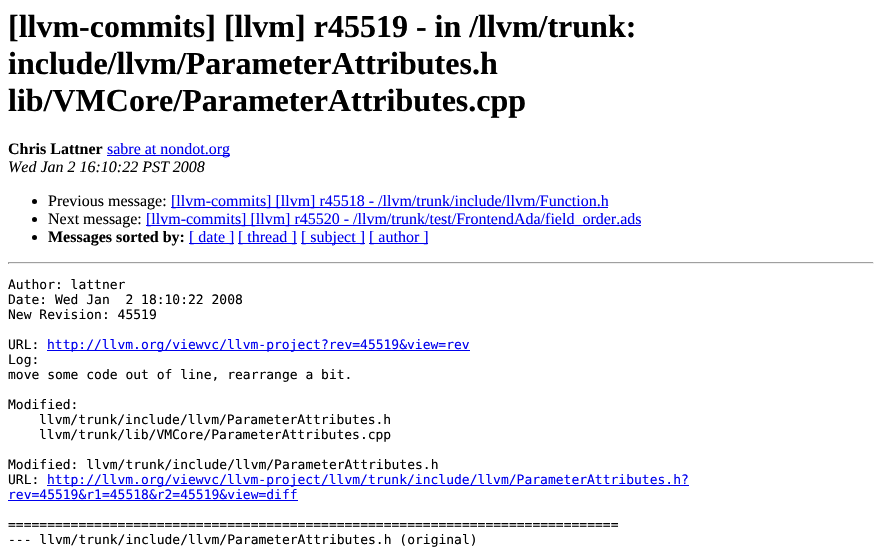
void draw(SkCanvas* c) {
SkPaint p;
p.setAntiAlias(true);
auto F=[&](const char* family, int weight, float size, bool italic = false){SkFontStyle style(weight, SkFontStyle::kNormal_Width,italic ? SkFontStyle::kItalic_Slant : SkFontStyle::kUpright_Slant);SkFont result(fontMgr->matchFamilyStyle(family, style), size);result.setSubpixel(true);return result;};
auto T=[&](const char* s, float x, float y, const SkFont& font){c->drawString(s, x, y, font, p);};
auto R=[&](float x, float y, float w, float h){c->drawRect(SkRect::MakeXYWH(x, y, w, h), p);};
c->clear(0xffffffff);
auto f1 = F("Liberation Serif",700,32);
p.setColor(0xff000000);
T("[llvm-commits] [llvm] r45519 - in /llvm/trunk:",8,37,f1);
T("include/llvm/ParameterAttributes.h",8,74,f1);
T("lib/VMCore/ParameterAttributes.cpp",8,111,f1);
auto f2 = F("Liberation Serif",700,16);
T("Chris Lattner",8,154,f2);
p.setColor(0xff0000ee);
R(107,155,123,1);
auto f3 = F("Liberation Serif",400,16);
T("sabre at nondot.org",107,154,f3);
auto f4 = F("Liberation Serif",400,16,true);
p.setColor(0xff000000);
T("Wed Jan 2 16:10:22 PST 2008",8,172,f4);
c->drawCircle(34.5,201.5,2.5,p);
T("Previous message:",48,206,f3);
p.setColor(0xff0000ee);
R(171,207,437,1);
T("[llvm-commits] [llvm] r45518 - /llvm/trunk/include/llvm/Function.h",171,206,f3);
p.setColor(0xff000000);
c->drawCircle(34.5,219.5,2.5,p);
T("Next message:",48,224,f3);
p.setColor(0xff0000ee);
R(146,225,495,1);
T("[llvm-commits] [llvm] r45520 - /llvm/trunk/test/FrontendAda/field_order.ads",146,224,f3);
p.setColor(0xff000000);
c->drawCircle(34.5,237.5,2.5,p);
T("Messages sorted by:",48,242,f2);
p.setColor(0xff0000ee);
R(189,243,45,1);
T("[ date ]",189,242,f3);
R(238,243,59,1);
T("[ thread ]",238,242,f3);
R(301,243,64,1);
T("[ subject ]",301,242,f3);
R(369,243,59,1);
T("[ author ]",369,242,f3);
p.setColor(0xff9f9f9f);
R(8,262,866,1);
p.setColor(0xffeeeeee);
R(873,262,1,2);
R(8,263,866,1);
p.setColor(0xff9f9f9f);
R(8,262,1,2);
auto f5 = F("DejaVu Sans Mono",400,13);
p.setColor(0xff000000);
T("Author: lattner",8,289,f5);
T("Date: Wed Jan  2 18:10:22 2008",8,304,f5);
T("New Revision: 45519",8,319,f5);
T("URL:",8,349,f5);
p.setColor(0xff0000ee);
R(47,350,423,1);
T("http://llvm.org/viewvc/llvm-project?rev=45519&view=rev",47,349,f5);
p.setColor(0xff000000);
T("Log:",8,364,f5);
T("move some code out of line, rearrange a bit.",8,379,f5);
T("Modified:",8,409,f5);
T("llvm/trunk/include/llvm/ParameterAttributes.h",39,424,f5);
T("llvm/trunk/lib/VMCore/ParameterAttributes.cpp",39,439,f5);
T("Modified: llvm/trunk/include/llvm/ParameterAttributes.h",8,469,f5);
T("URL:",8,484,f5);
p.setColor(0xff0000ee);
R(47,485,642,1);
T("http://llvm.org/viewvc/llvm-project/llvm/trunk/include/llvm/ParameterAttributes.h?",47,484,f5);
T("rev=45519&r1=45518&r2=45519&view=diff",8,499,f5);
R(8,500,290,1);
p.setColor(0xff000000);
T("==============================================================================",8,529,f5);
T("--- llvm/trunk/include/llvm/ParameterAttributes.h (original)",8,544,f5);
}
